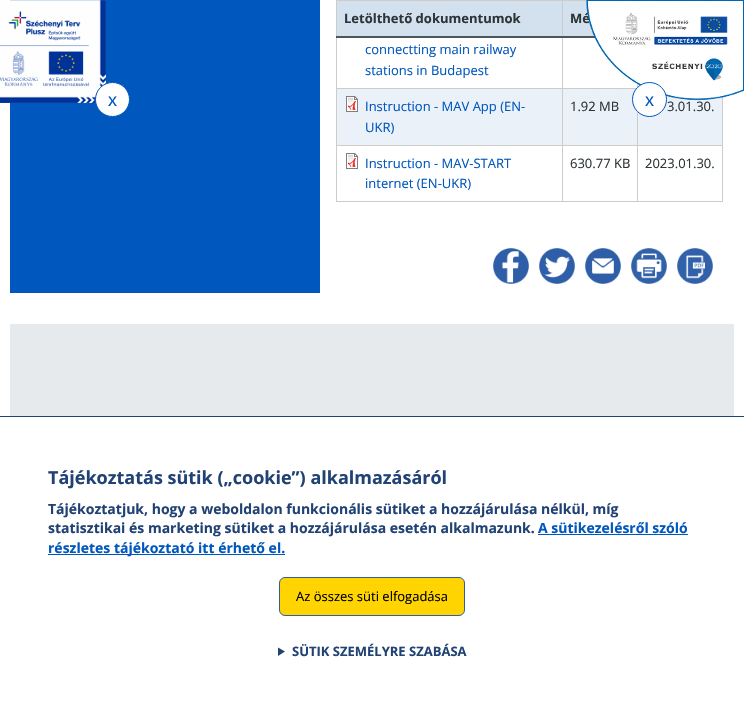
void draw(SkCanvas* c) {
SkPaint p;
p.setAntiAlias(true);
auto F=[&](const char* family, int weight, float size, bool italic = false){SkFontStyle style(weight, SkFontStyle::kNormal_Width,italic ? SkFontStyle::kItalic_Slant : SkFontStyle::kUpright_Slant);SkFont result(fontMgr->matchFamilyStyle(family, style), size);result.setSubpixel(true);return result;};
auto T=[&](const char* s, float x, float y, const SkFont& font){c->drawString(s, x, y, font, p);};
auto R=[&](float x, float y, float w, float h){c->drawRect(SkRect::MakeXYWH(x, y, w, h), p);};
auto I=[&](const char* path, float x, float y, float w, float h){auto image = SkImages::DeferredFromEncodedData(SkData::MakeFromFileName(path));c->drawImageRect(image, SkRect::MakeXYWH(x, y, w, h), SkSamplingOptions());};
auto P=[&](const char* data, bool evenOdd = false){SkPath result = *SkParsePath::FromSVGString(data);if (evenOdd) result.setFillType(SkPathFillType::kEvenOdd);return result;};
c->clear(0xffffffff);
p.setColor(0xff0057be);
R(10,0,310,293);
p.setColor(0xffcccccc);
R(562,0,25,1);
R(562,0,1,37);
R(336,0,227,1);
R(336,0,1,37);
p.setColor(0xff4a575b);
R(336,36,259,2);
p.setColor(0xffd3e0ee);
R(337,1,225,35);
auto f1 = F("Open Sans",700,13);
p.setColor(0xff2d3538);
T("Letölthető dokumentumok",344,23,f1);
p.setColor(0xffd3e0ee);
R(563,1,31,35);
p.setColor(0xff2d3538);
T("Mé",570,23,f1);
p.setColor(0xffcccccc);
R(336,88,301,1);
auto f2 = F("Open Sans",400,13);
p.setColor(0xff0057be);
T("connectting main railway",365,54,f2);
T("stations in Budapest",365,75,f2);
p.setColor(0xffcccccc);
R(637,83,1,6);
p.setColor(0xffeaf1f9);
R(337,89,385,56);
p.setColor(0xffcccccc);
R(336,145,387,1);
I("1.png",346,96,12,16);
p.setColor(0xff0057be);
T("Instruction - MAV App (EN-",365,111,f2);
T("UKR)",365,132,f2);
p.setColor(0xff2d3538);
T("1.92 MB",570,111,f2);
T("3.01.30.",667,111,f2);
p.setColor(0xffcccccc);
R(336,201,387,1);
R(336,38,1,164);
I("2.png",346,153,12,16);
p.setColor(0xff0057be);
T("Instruction - MАV-START",365,168,f2);
T("internet (EN-UKR)",365,188,f2);
p.setColor(0xffcccccc);
R(562,38,1,164);
p.setColor(0xff2d3538);
T("630.77 KB",570,168,f2);
p.setColor(0xffcccccc);
R(722,88,1,114);
R(637,111,1,91);
p.setColor(0xff2d3538);
T("2023.01.30.",645,168,f2);
I("3.png",493,248,36,36);
I("4.png",539,248,36,36);
I("5.png",585,248,36,36);
I("6.png",631,248,36,36);
I("7.png",677,248,36,36);
p.setColor(0xffe7eaed);
R(10,324,724,92);
I("8.png",0,0,106,103);
p.setColor(0xffffffff);
c->drawCircle(112.5,99.5,17,p);
p.setStroke(true);
p.setStrokeWidth(1);
p.setColor(0xff0057be);
c->drawCircle(112.5,99.5,17,p);
auto f3 = F("Liberation Sans",400,18);
p.setStroke(false);
T("x",108,106,f3);
I("9.png",586,0,158,101);
p.setColor(0xffffffff);
c->drawCircle(649.5,99.5,17,p);
p.setStroke(true);
p.setColor(0xff0057be);
c->drawCircle(649.5,99.5,17,p);
p.setStroke(false);
T("x",645,106,f3);
p.setColor(0xff204274);
R(0,416,744,1);
auto f4 = F("Open Sans",700,18);
T("Tájékoztatás sütik („cookie”) alkalmazásáról",48,484,f4);
auto f5 = F("Open Sans",700,14);
T("Tájékoztatjuk, hogy a weboldalon funkcionális sütiket a hozzájárulása nélkül, míg",48,514,f5);
T("statisztikai és marketing sütiket a hozzájárulása esetén alkalmazunk.",48,533,f5);
p.setColor(0xff0057be);
T("A sütikezelésről szóló",538,533,f5);
R(538,534,150,1);
R(48,554,237,1);
T("részletes tájékoztató itt érhető el.",48,553,f5);
p.setColor(0xffffd400);
c->drawRoundRect(SkRect::MakeXYWH(279.5,577.5,185,38),5.5,5.5,p);
p.setStroke(true);
p.setColor(0xff2e5ea8);
c->drawRoundRect(SkRect::MakeXYWH(279.5,577.5,185,38),5.5,5.5,p);
p.setStroke(false);
p.setColor(0xff000000);
T("Az összes süti elfogadása",296,601,f2);
p.setColor(0xff204274);
c->drawPath(P("M278 647.5l7 4l-7 4.5z"),p);
T("SÜTIK SZEMÉLYRE SZABÁSA",292,656,f1);
}
